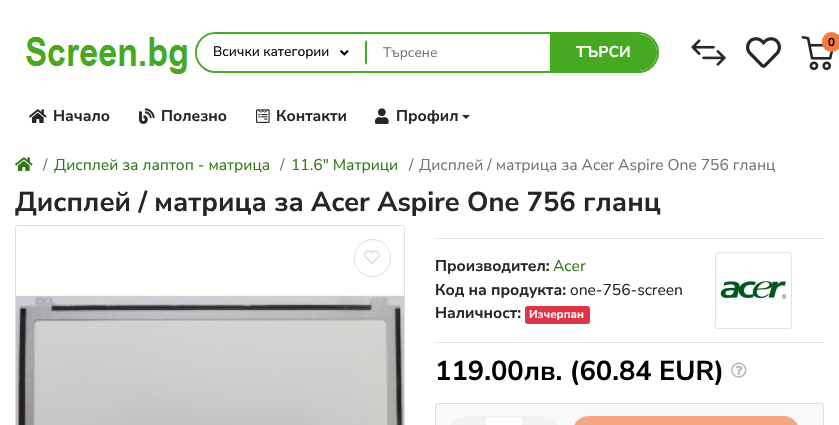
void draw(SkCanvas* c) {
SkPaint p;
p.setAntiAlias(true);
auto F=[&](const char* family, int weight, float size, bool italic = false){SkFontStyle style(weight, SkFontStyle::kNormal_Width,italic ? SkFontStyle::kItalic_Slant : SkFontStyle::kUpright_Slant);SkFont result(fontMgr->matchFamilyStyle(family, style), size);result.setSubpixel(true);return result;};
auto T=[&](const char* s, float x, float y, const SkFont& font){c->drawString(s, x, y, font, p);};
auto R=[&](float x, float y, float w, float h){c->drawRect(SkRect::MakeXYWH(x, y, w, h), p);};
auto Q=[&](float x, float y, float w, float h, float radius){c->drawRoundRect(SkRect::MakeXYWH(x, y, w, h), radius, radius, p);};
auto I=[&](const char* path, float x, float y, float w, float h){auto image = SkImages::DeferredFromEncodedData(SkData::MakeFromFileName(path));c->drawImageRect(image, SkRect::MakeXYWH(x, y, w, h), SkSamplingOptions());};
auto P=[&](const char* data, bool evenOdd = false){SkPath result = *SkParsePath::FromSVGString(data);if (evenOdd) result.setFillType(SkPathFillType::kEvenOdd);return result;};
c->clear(0xffffffff);
I("1.png",26,37,161,37);
p.setStroke(true);
p.setStrokeWidth(2);
p.setColor(0xff47a922);
c->drawRoundRect(SkRect::MakeXYWH(196,33,462,39),19.5,19.5,p);
p.setStroke(false);
p.setColor(0xffffffff);
c->drawPath(P("M215.5 34h334.5v37h-334.5c-10 0-18.5-8.5-18.5-18.5c0-10 8.5-18.5 18.5-18.5z"),p);
p.setColor(0xff47a922);
c->drawPath(P("M367 40v25l-2-2v-21z"),p);
auto f1 = F("Nunito Sans",400,13.75);
p.setColor(0xff000000);
T("Всички категории",213,56,f1);
I("2.png",340,50,9,6);
p.setColor(0xff757575);
T("Търсене",383,57,f1);
p.setColor(0xff47a922);
c->drawPath(P("M550 34h88.5c10 0 18.5 8.5 18.5 18.5c0 10-8.5 18.5-18.5 18.5h-88.5z"),p);
auto f2 = F("Nunito Sans",700,15.6);
p.setColor(0xffffffff);
T("ТЪРСИ",576,57,f2);
I("3.png",691,39,35,27);
I("4.png",746,37,35,31);
I("5.png",801,36,33,34);
p.setColor(0xfff47b40);
Q(822,32,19,20,9.5);
auto f3 = F("Nunito Sans",700,11.5);
p.setColor(0xff000000);
T("0",828,46,f3);
I("6.png",29,109,18,14);
p.setColor(0xff262626);
T("Начало",53,121,f2);
I("7.png",139,108,16,16);
T("Полезно",161,121,f2);
I("8.png",256,109,14,14);
T("Контакти",276,121,f2);
I("9.png",375,108,14,16);
T("Профил",396,121,f2);
c->drawPath(P("M462 115h8l-4 4z"),p);
I("10.png",15,157,18,14);
auto f4 = F("Nunito Sans",400,15.6);
p.setColor(0xff6c757d);
T("/",43,170,f4);
p.setColor(0xff327618);
T("Дисплей за лаптоп - матрица",54,170,f4);
p.setColor(0xff6c757d);
T("/",280,170,f4);
p.setColor(0xff327618);
T("11.6\" Матрици",291,170,f4);
p.setColor(0xff6c757d);
T("/",409,170,f4);
T("Дисплей / матрица за Acer Aspire One 756 гланц",419,170,f4);
auto f5 = F("Nunito Sans",700,27.3);
p.setColor(0xff262626);
T("Дисплей / матрица за Acer Aspire One 756 гланц",15,211,f5);
p.setStroke(true);
p.setStrokeWidth(1);
p.setColor(0xffdddddd);
c->drawRoundRect(SkRect::MakeXYWH(15.5,225.5,389,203),2.5,2.5,p);
I("11.png",16,226,388,199);
c->drawRoundRect(SkRect::MakeXYWH(354.5,239.5,36,37),18,18,p);
I("12.png",364,250,16,14);
p.setStroke(false);
p.setColor(0xffe6e6e6);
R(435,238,389,1);
p.setColor(0xff262626);
T("Производител:",435,271,f2);
p.setColor(0xff327618);
T("Acer",553,271,f4);
p.setColor(0xff262626);
T("Код на продукта:",435,295,f2);
T("one-756-screen",570,295,f4);
T("Наличност:",435,318,f2);
p.setColor(0xffdc3545);
Q(525,306,65,18,3);
p.setColor(0xffffffff);
T("Изчерпан",529,318,f3);
p.setStroke(true);
p.setColor(0xffdee2e6);
c->drawRoundRect(SkRect::MakeXYWH(715.5,252.5,76,76),2.5,2.5,p);
I("13.png",718,271,70,32);
p.setStroke(false);
p.setColor(0xffe6e6e6);
R(435,342,389,1);
p.setColor(0xff000000);
T("119.00лв. (60.84 EUR)",435,380,f5);
I("14.png",731,362,16,16);
p.setColor(0xfff8f9fa);
R(435,403,389,22);
p.setStroke(true);
p.setColor(0xffdddddd);
c->drawRoundRect(SkRect::MakeXYWH(435.5,403.5,388,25),2.5,2.5,p);
p.setStroke(false);
p.setColor(0xffffffff);
c->drawRect(SkRect::MakeXYWH(485,417,38,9),p);
p.setStroke(true);
p.setStrokeWidth(2);
p.setColor(0xfff2f2f5);
c->drawRect(SkRect::MakeXYWH(485,417,38,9),p);
p.setStroke(false);
c->drawPath(P("M467.5 416h18.5v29h-18.5c-11 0-19.5-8.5-19.5-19.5v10c0-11 8.5-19.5 19.5-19.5z"),p);
c->drawPath(P("M522 416h19.5c11 0 19.5 8.5 19.5 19.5v-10c0 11-8.5 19.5-19.5 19.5h-19.5z"),p);
p.setColor(0xfff5a781);
c->drawRoundRect(SkRect::MakeXYWH(574,417,224,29),18.5,18.5,p);
p.setStroke(true);
c->drawRoundRect(SkRect::MakeXYWH(574,417,224,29),18.5,18.5,p);
}
